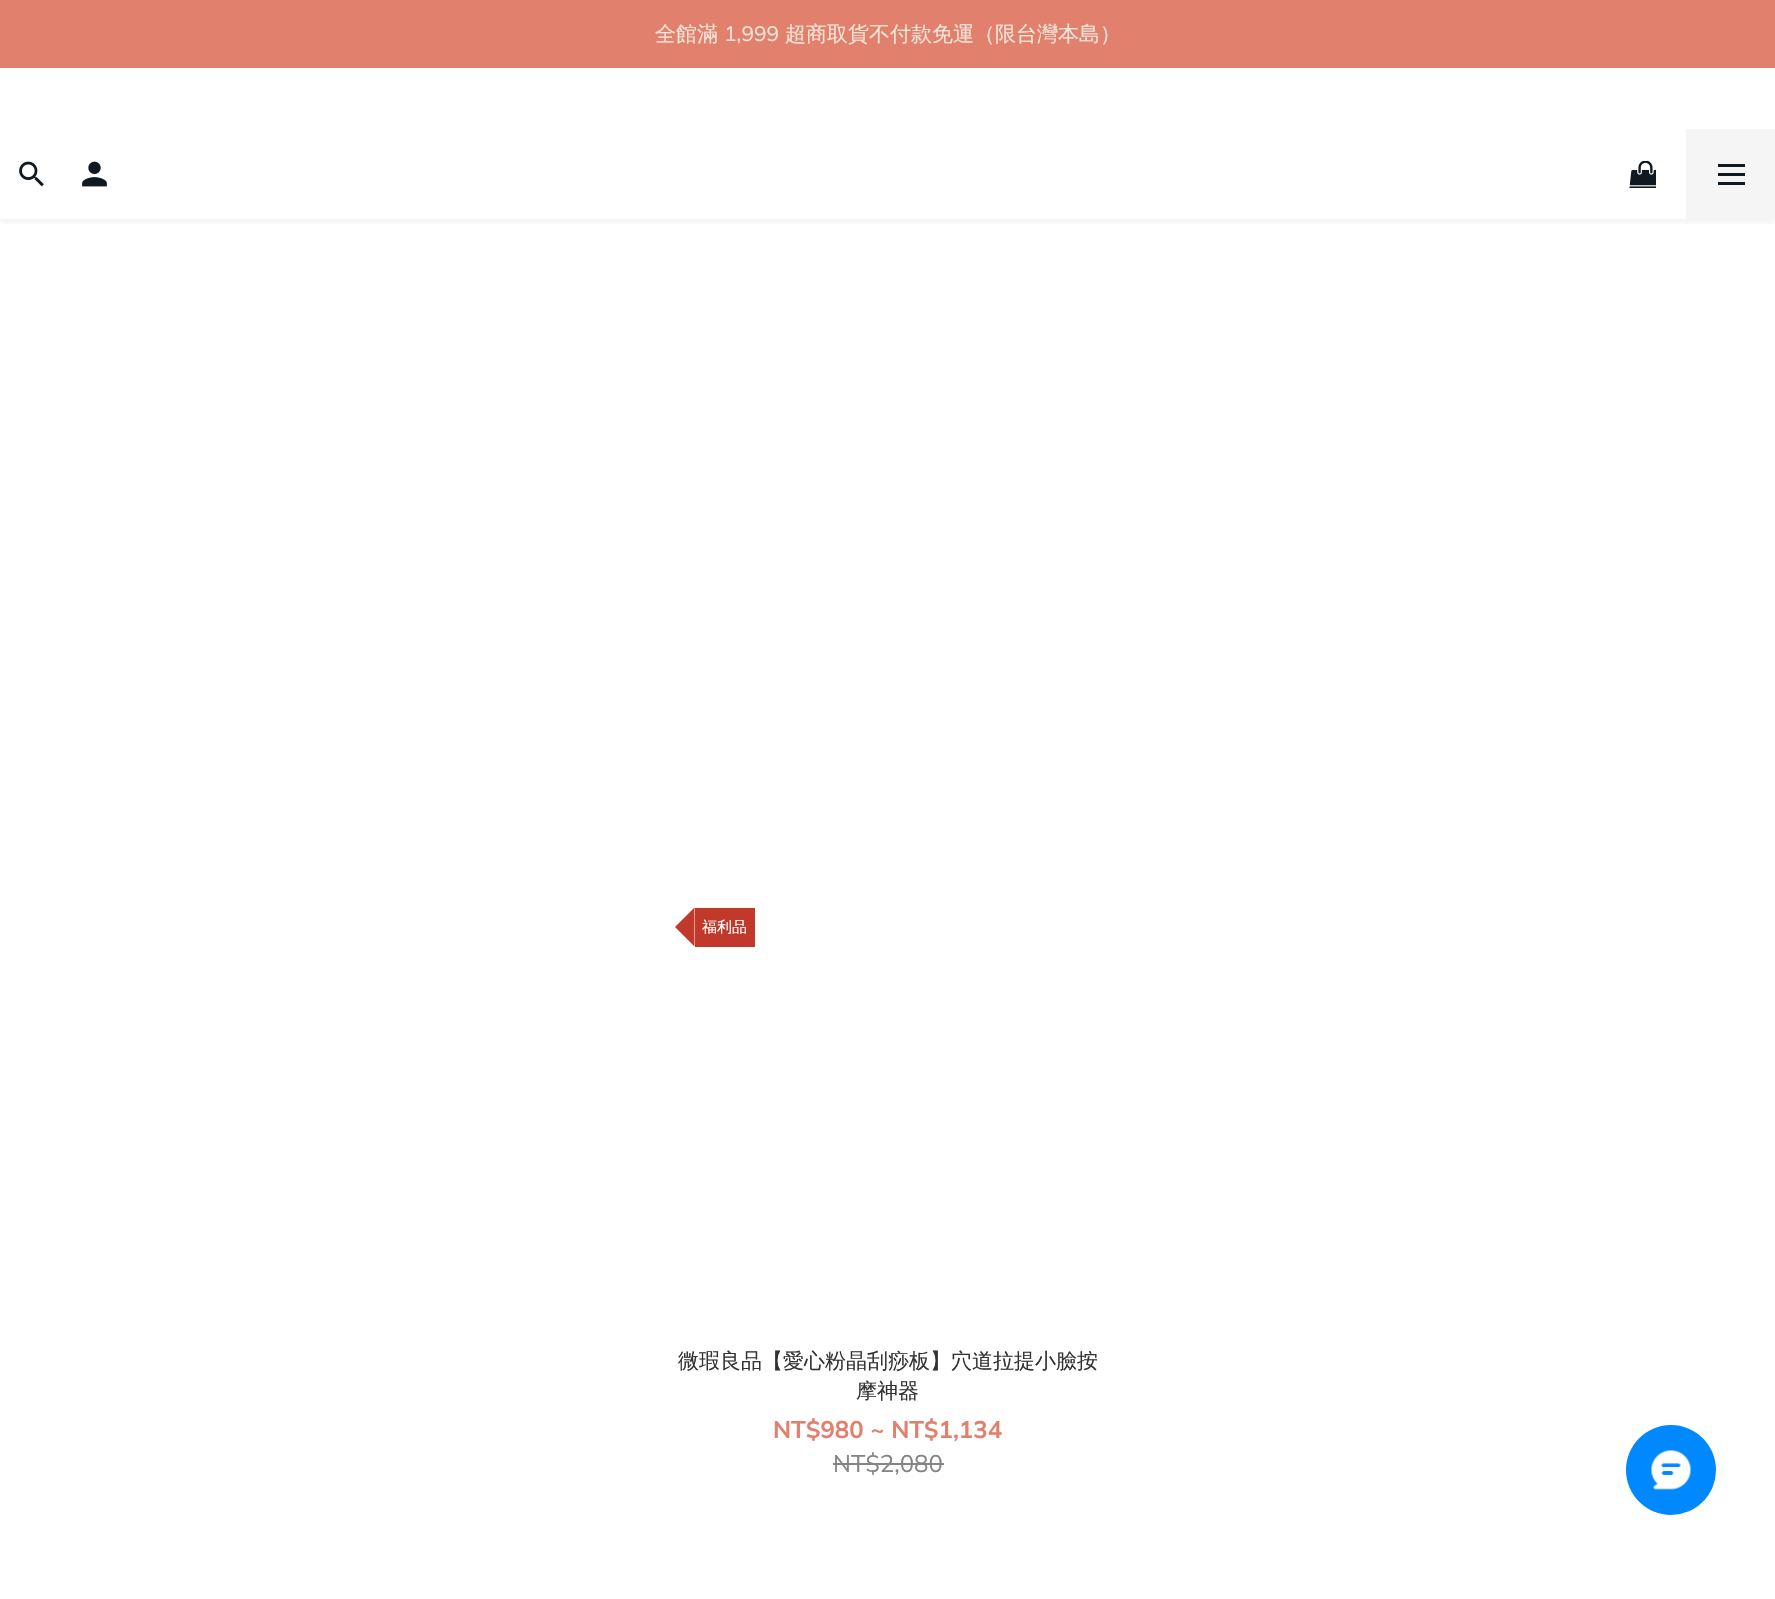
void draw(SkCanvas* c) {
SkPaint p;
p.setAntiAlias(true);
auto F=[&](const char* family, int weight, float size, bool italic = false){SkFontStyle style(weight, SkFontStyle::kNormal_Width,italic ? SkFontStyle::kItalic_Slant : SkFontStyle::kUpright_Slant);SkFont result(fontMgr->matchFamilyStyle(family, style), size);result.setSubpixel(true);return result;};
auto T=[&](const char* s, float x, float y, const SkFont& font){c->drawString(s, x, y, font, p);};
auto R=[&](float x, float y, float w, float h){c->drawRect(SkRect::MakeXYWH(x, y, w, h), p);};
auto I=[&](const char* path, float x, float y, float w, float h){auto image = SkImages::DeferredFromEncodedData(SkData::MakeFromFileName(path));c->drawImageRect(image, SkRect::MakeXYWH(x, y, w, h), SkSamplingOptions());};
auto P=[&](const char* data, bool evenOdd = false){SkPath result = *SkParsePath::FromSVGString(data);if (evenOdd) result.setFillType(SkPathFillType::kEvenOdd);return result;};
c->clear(0xffffffff);
p.setColor(0xffe1806c);
R(0,0,1775,68);
auto f1 = F("WenQuanYi Zen Hei",500,21);
p.setColor(0xfff0e4d7);
T("全館滿",655,41,f1);
auto f2 = F("Mulish",400,21);
T("1,999",724,41,f2);
T("超商取貨不付款免運（限台灣本島）",785,41,f1);
c->save();
c->clipRect(SkRect::MakeXYWH(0,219,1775,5));
p.setColor(0x0f000000);
p.setMaskFilter(SkMaskFilter::MakeBlur(kNormal_SkBlurStyle, 4.5));
c->drawRect(SkRect::MakeXYWH(0,71,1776,151),p);
p.setMaskFilter(nullptr);
c->restore();
I("1.png",19,161,25,26);
I("2.png",82,161,25,26);
I("3.png",1629,161,27,27);
p.setColor(0xfff5f5f5);
R(1686,129,89,90);
p.setColor(0xff101820);
R(1718,173,27,3);
R(1718,164,27,3);
R(1718,182,27,3);
p.setColor(0xffc0392b);
R(695,908,60,39);
c->drawPath(P("M694.5 907.5v39l-19.5-19.5z"),p);
auto f3 = F("WenQuanYi Zen Hei",500,15);
p.setColor(0xffffffff);
T("福利品",702,932,f3);
p.setColor(0xff333333);
T("微瑕良品【愛心粉晶刮痧板】穴道拉提小臉按",678,1368,f1);
T("摩神器",856,1398,f1);
auto f4 = F("Mulish",700,24);
p.setColor(0xffe1806c);
T("NT$980 ~ NT$1,134",773,1438,f4);
auto f5 = F("Mulish",400,24);
p.setColor(0xff858585);
T("NT$2,080",833,1472,f5);
R(833,1463,111,2);
p.setColor(0xff0088fe);
c->drawCircle(1671,1470,45,p);
I("4.png",1651,1450,40,40);
}
